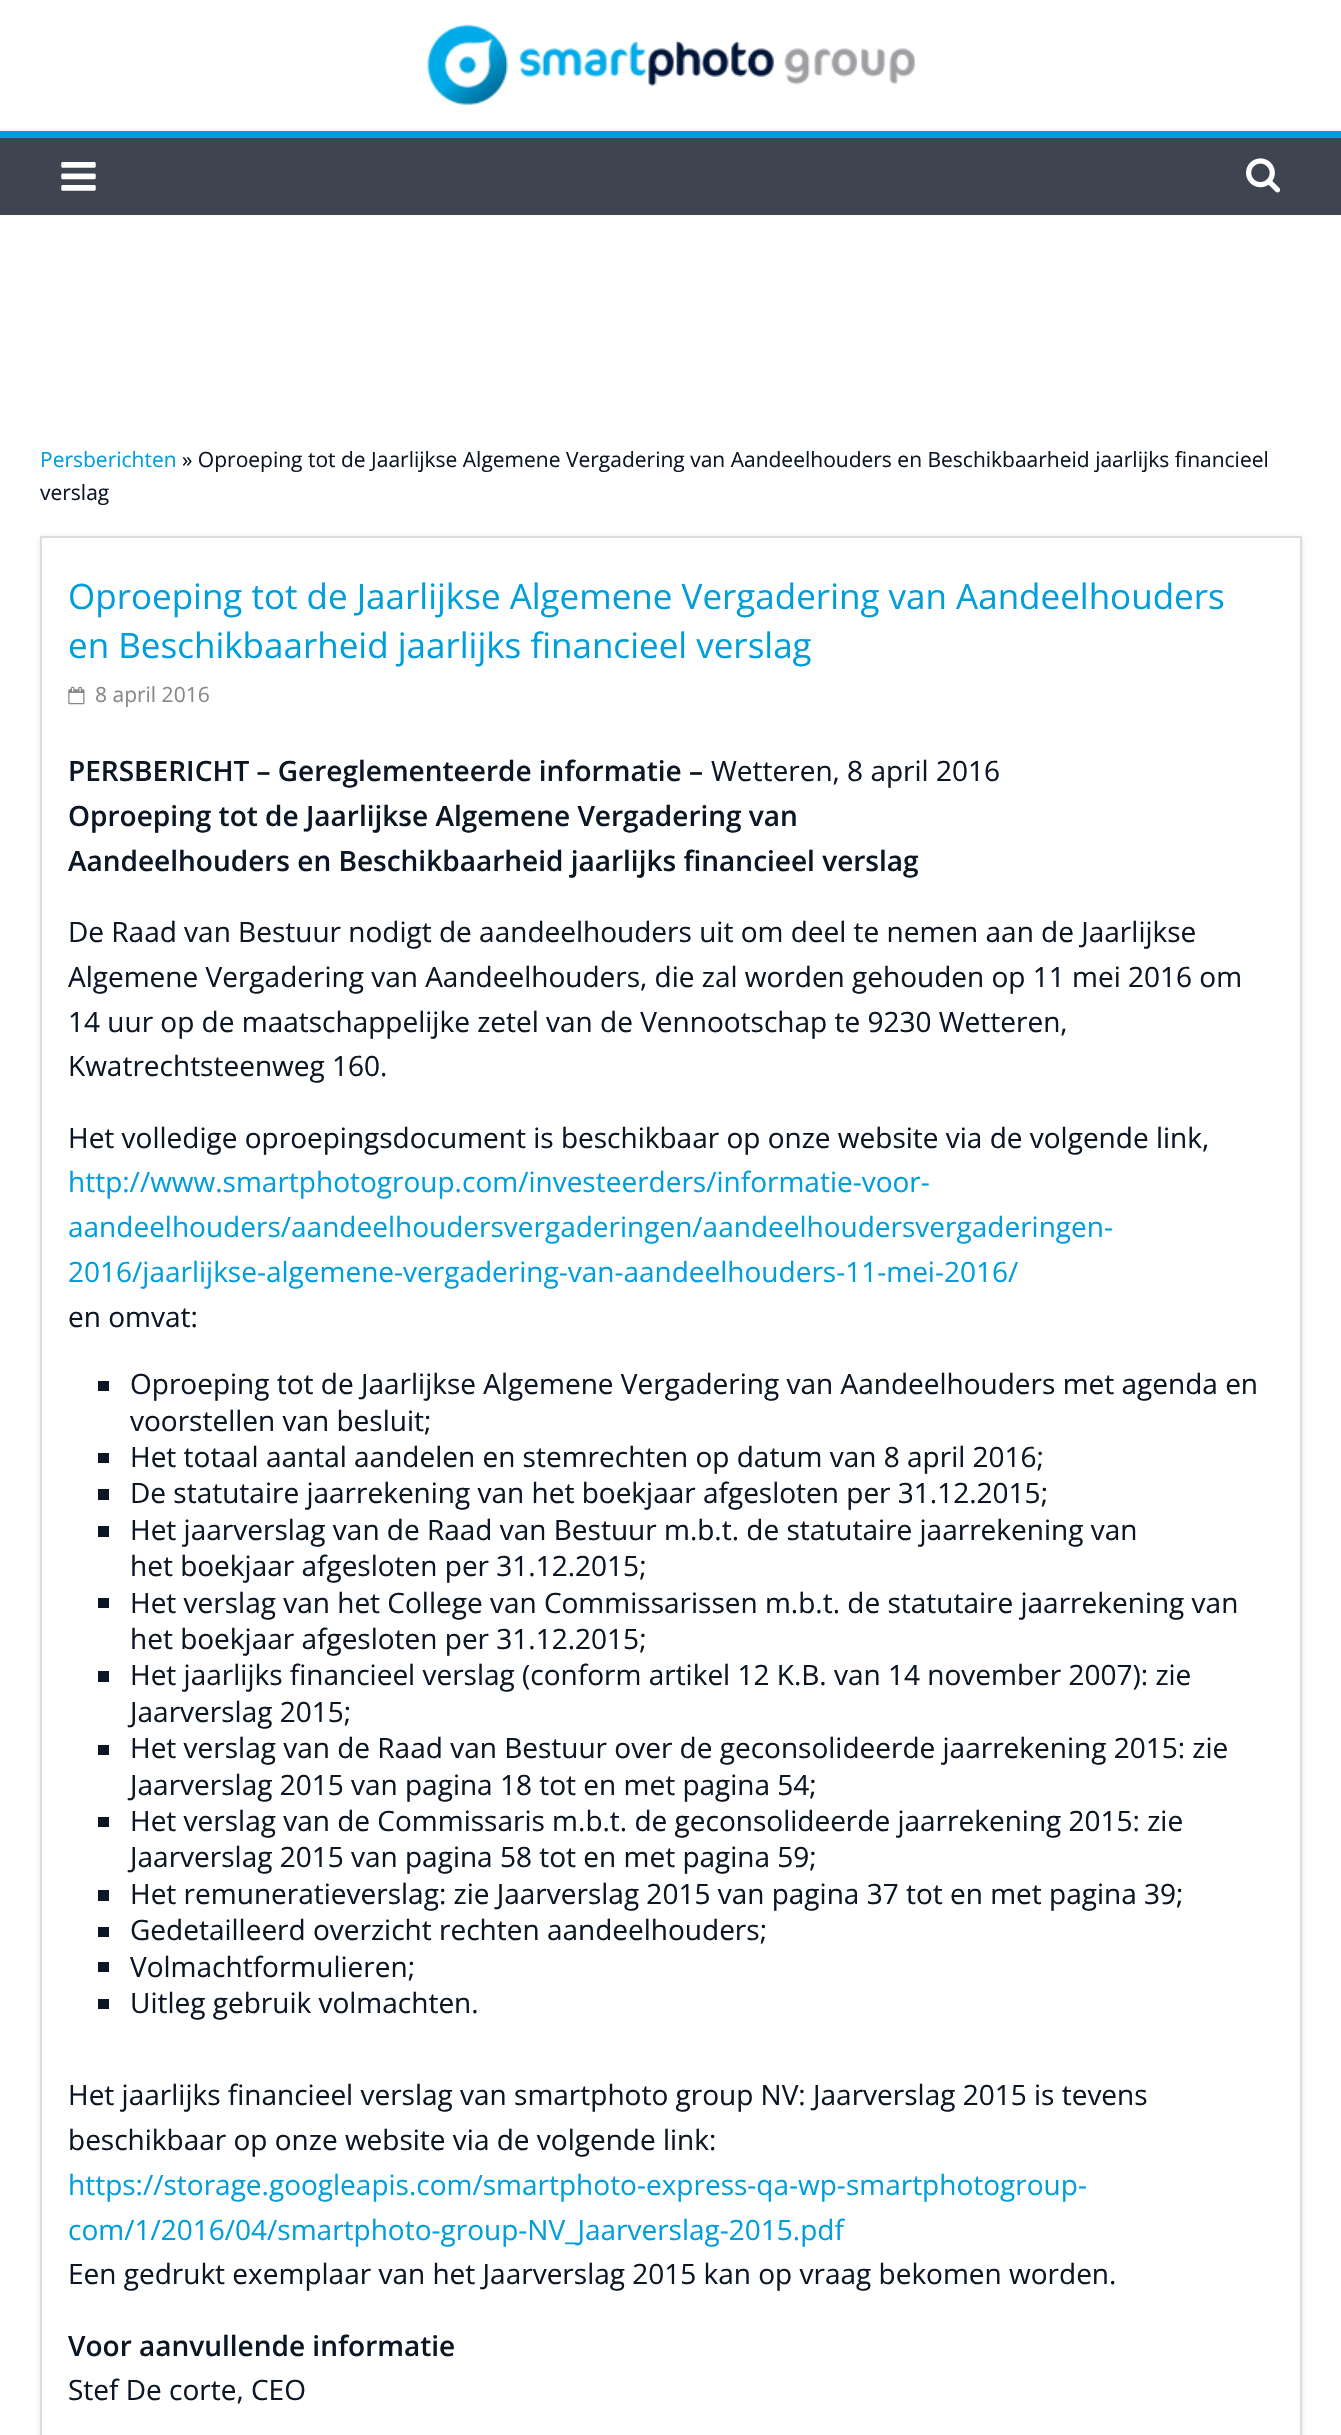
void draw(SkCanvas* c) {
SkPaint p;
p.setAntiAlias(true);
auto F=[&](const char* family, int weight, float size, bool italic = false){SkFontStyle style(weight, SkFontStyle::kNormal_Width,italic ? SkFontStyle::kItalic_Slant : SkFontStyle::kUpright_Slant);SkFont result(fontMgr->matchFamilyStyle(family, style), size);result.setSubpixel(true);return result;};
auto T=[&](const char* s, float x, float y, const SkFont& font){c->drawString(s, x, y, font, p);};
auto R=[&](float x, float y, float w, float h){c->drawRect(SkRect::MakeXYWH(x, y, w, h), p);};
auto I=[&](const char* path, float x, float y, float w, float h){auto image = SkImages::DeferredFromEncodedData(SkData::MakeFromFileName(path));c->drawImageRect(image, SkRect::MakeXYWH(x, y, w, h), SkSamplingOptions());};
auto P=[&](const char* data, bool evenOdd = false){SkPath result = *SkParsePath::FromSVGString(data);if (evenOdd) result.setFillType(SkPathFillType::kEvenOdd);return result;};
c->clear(0xffffffff);
I("1.png",427,24,488,81);
p.setColor(0xff3e4551);
R(0,138,1341,77);
p.setColor(0xff009fdc);
R(0,131,1341,7);
I("2.png",61,162,35,29);
I("3.png",1246,158,35,35);
auto f1 = F("Open Sans",400,21);
T("Persberichten",40,467,f1);
p.setColor(0xff0c1725);
T("» Oproeping tot de Jaarlijkse Algemene Vergadering van Aandeelhouders en Beschikbaarheid jaarlijks financieel",182,467,f1);
T("verslag",40,500,f1);
c->save();
c->clipPath(P("M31 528h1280v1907h-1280zm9 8h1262v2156h-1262z",true),true);
p.setColor(0x1a000000);
p.setMaskFilter(SkMaskFilter::MakeBlur(kNormal_SkBlurStyle, 2.5));
c->drawRect(SkRect::MakeXYWH(40,537,1262,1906),p);
p.setMaskFilter(nullptr);
c->restore();
p.setStroke(true);
p.setStrokeWidth(2);
p.setColor(0xffdcdcdc);
c->drawRect(SkRect::MakeXYWH(41,537,1260,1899),p);
auto f2 = F("Open Sans",400,35);
p.setStroke(false);
p.setColor(0xff009fdc);
T("Oproeping tot de Jaarlijkse Algemene Vergadering van Aandeelhouders",68,609,f2);
T("en Beschikbaarheid jaarlijks financieel verslag",68,658,f2);
I("4.png",68,686,17,19);
p.setColor(0xff888888);
T("8 april 2016",95,702,f1);
auto f3 = F("Open Sans",600,28);
p.setColor(0xff0c1725);
T("PERSBERICHT – Gereglementeerde informatie –",68,781,f3);
auto f4 = F("Open Sans",400,28);
T("Wetteren, 8 april 2016",711,781,f4);
T("Oproeping tot de Jaarlijkse Algemene Vergadering van",68,826,f3);
T("Aandeelhouders en Beschikbaarheid jaarlijks financieel verslag",68,871,f3);
T("De Raad van Bestuur nodigt de aandeelhouders uit om deel te nemen aan de Jaarlijkse",68,942,f4);
T("Algemene Vergadering van Aandeelhouders, die zal worden gehouden op 11 mei 2016 om",68,987,f4);
T("14 uur op de maatschappelijke zetel van de Vennootschap te 9230 Wetteren,",68,1032,f4);
T("Kwatrechtsteenweg 160.",68,1076,f4);
T("Het volledige oproepingsdocument is beschikbaar op onze website via de volgende link,",68,1148,f4);
p.setColor(0xff009fdc);
T("http://www.smartphotogroup.com/investeerders/informatie-voor-",68,1192,f4);
T("aandeelhouders/aandeelhoudersvergaderingen/aandeelhoudersvergaderingen-",68,1237,f4);
T("2016/jaarlijkse-algemene-vergadering-van-aandeelhouders-11-mei-2016/",68,1282,f4);
p.setColor(0xff0c1725);
T("en omvat:",68,1327,f4);
R(98,1381,11,10);
T("Oproeping tot de Jaarlijkse Algemene Vergadering van Aandeelhouders met agenda en",130,1394,f4);
T("voorstellen van besluit;",130,1431,f4);
R(98,1453,11,10);
T("Het totaal aantal aandelen en stemrechten op datum van 8 april 2016;",130,1467,f4);
R(98,1489,11,11);
T("De statutaire jaarrekening van het boekjaar afgesloten per 31.12.2015;",130,1503,f4);
R(98,1526,11,11);
T("Het jaarverslag van de Raad van Bestuur m.b.t. de statutaire jaarrekening van",130,1540,f4);
T("het boekjaar afgesloten per 31.12.2015;",130,1576,f4);
R(98,1598,11,10);
T("Het verslag van het College van Commissarissen m.b.t. de statutaire jaarrekening van",130,1613,f4);
T("het boekjaar afgesloten per 31.12.2015;",130,1649,f4);
R(98,1671,11,11);
T("Het jaarlijks financieel verslag (conform artikel 12 K.B. van 14 november 2007): zie",130,1685,f4);
T("Jaarverslag 2015;",130,1722,f4);
R(98,1745,11,10);
T("Het verslag van de Raad van Bestuur over de geconsolideerde jaarrekening 2015: zie",130,1758,f4);
T("Jaarverslag 2015 van pagina 18 tot en met pagina 54;",130,1795,f4);
R(98,1817,11,10);
T("Het verslag van de Commissaris m.b.t. de geconsolideerde jaarrekening 2015: zie",130,1831,f4);
T("Jaarverslag 2015 van pagina 58 tot en met pagina 59;",130,1867,f4);
R(98,1890,11,11);
T("Het remuneratieverslag: zie Jaarverslag 2015 van pagina 37 tot en met pagina 39;",130,1904,f4);
R(98,1927,11,10);
T("Gedetailleerd overzicht rechten aandeelhouders;",130,1940,f4);
R(98,1962,11,10);
T("Volmachtformulieren;",130,1977,f4);
R(98,1999,11,10);
T("Uitleg gebruik volmachten.",130,2013,f4);
T("Het jaarlijks financieel verslag van smartphoto group NV: Jaarverslag 2015 is tevens",68,2105,f4);
T("beschikbaar op onze website via de volgende link:",68,2150,f4);
p.setColor(0xff009fdc);
T("https://storage.googleapis.com/smartphoto-express-qa-wp-smartphotogroup-",68,2195,f4);
T("com/1/2016/04/smartphoto-group-NV_Jaarverslag-2015.pdf",68,2240,f4);
p.setColor(0xff0c1725);
T("Een gedrukt exemplaar van het Jaarverslag 2015 kan op vraag bekomen worden.",68,2284,f4);
T("Voor aanvullende informatie",68,2356,f3);
T("Stef De corte, CEO",68,2400,f4);
}
